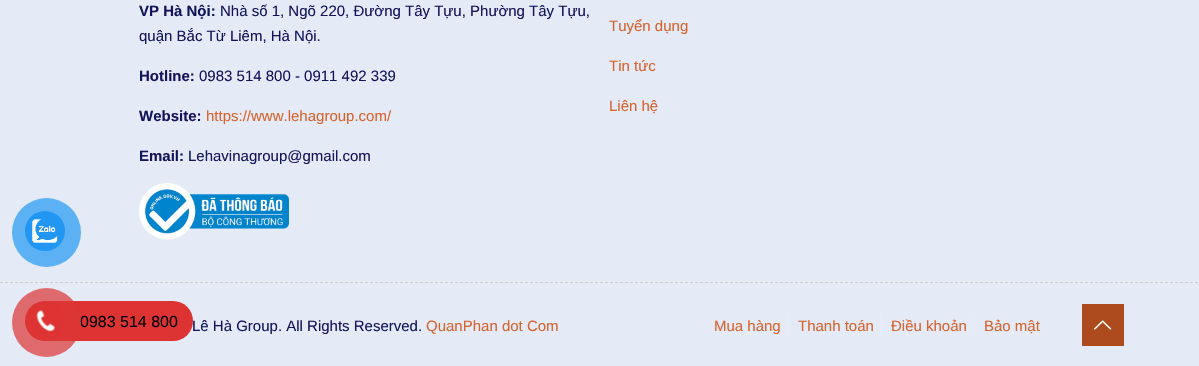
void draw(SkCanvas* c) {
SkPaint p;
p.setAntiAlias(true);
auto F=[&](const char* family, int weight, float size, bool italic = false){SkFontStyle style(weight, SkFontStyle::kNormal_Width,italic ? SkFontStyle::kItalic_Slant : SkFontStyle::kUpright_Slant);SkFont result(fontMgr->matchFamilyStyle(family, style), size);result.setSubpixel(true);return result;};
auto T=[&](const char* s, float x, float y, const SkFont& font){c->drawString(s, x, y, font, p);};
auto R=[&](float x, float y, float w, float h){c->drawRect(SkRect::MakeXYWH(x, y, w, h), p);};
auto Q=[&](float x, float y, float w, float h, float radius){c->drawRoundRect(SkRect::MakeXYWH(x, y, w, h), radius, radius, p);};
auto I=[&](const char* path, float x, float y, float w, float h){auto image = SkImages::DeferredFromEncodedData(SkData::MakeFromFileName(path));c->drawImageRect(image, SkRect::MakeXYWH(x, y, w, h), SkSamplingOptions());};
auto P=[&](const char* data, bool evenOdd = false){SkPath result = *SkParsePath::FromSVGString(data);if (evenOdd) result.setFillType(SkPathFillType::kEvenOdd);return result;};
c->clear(0xffe4ebf7);
p.setColor(0xff5cb0f4);
c->drawCircle(46.5,232.5,34.5,p);
p.setColor(0xff2196f3);
c->drawCircle(45,231,20,p);
I("1.png",32,219,26,24);
auto f1 = F("Liberation Sans",400,15);
p.setColor(0xff121559);
T("Lê Hà Group. All Rights Reserved.",192,331,f1);
p.setColor(0xffdd3333);
Q(30,301,163,40,20);
auto f2 = F("Liberation Sans",400,16);
p.setColor(0xff000000);
T("0983 514 800",80,327,f2);
p.setColor(0xb3dd3333);
c->drawCircle(46.5,322.5,34.5,p);
p.setColor(0xffdd3333);
c->drawCircle(45,321,20,p);
I("2.png",36,310,19,22);
auto f3 = F("Liberation Sans",700,15);
p.setColor(0xff121559);
T("VP Hà Nội:",139,16,f3);
T("Nhà số 1, Ngõ 220, Đường Tây Tựu, Phường Tây Tựu,",220,16,f1);
T("quận Bắc Từ Liêm, Hà Nội.",139,41,f1);
T("Hotline:",139,81,f3);
T("0983 514 800 - 0911 492 339",199,81,f1);
T("Website:",139,121,f3);
p.setColor(0xffd7632d);
T("https://www.lehagroup.com/",206,121,f1);
p.setColor(0xff121559);
T("Email:",139,161,f3);
T("Lehavinagroup@gmail.com",188,161,f1);
I("3.png",139,183,150,57);
p.setColor(0xffd7632d);
T("Tuyển dụng",609,31,f1);
T("Tin tức",609,71,f1);
T("Liên hệ",609,111,f1);
p.setStroke(true);
p.setStrokeWidth(1);
p.setColor(0xffcccccc);
p.setPathEffect(SkDashPathEffect::Make({{3,2}}, 0));
c->drawPath(P("M0 282.5h1199"),p);
p.setPathEffect(nullptr);
p.setStroke(false);
p.setColor(0xffd7632d);
T("QuanPhan dot Com",426,331,f1);
p.setColor(0xffe7edf8);
R(787,313,1,25);
p.setColor(0xffd7632d);
T("Mua hàng",714,331,f1);
p.setColor(0xffe7edf8);
R(880,313,1,25);
p.setColor(0xffd7632d);
T("Thanh toán",798,331,f1);
p.setColor(0xffe7edf8);
R(973,313,1,25);
p.setColor(0xffd7632d);
T("Điều khoản",891,331,f1);
T("Bảo mật",984,331,f1);
p.setColor(0xffad4b1e);
R(1082,304,42,42);
I("4.png",1094,320,18,10);
}
